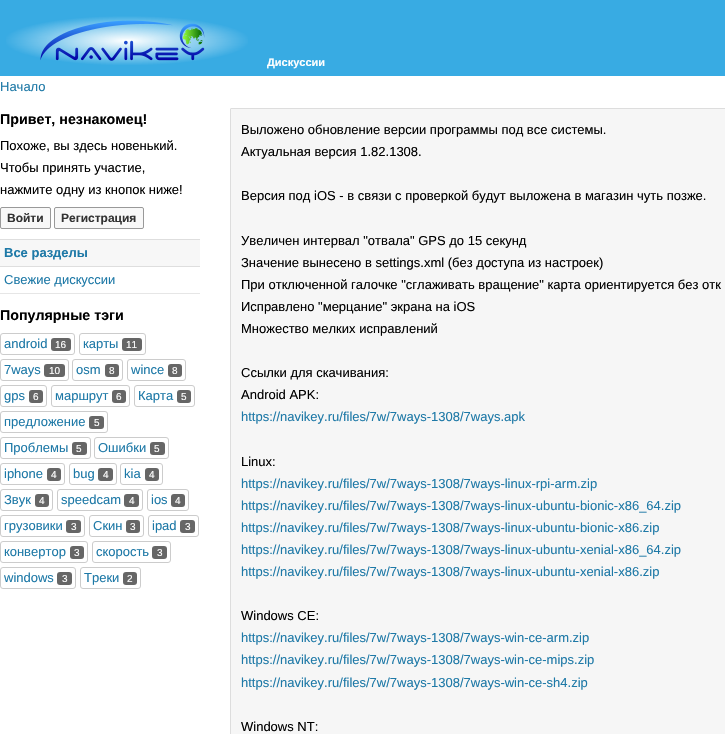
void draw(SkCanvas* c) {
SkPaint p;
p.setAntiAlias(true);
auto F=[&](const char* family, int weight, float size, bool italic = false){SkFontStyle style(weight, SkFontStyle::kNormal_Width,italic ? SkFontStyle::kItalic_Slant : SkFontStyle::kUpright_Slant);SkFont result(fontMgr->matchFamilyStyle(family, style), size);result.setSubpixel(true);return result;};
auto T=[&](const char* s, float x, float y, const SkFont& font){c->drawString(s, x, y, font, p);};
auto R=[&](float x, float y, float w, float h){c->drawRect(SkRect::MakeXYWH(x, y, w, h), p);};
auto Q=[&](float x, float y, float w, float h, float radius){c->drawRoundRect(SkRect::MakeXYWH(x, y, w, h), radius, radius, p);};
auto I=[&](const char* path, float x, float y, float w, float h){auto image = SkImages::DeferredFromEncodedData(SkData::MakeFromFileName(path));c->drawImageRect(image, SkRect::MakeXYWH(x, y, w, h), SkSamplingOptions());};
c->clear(0xffffffff);
p.setColor(0xff38abe3);
R(0,0,725,76);
I("1.png",6,16,242,49);
auto f1 = F("Liberation Sans",700,11);
p.setColor(0xffffffff);
T("Дискуссии",267,66,f1);
auto f2 = F("Liberation Sans",400,13);
p.setColor(0xff1e79a7);
T("Начало",0,91,f2);
auto f3 = F("Liberation Sans",700,14.25);
p.setColor(0xff000000);
T("Привет, незнакомец!",0,124,f3);
T("Похоже, вы здесь новенький.",0,150,f2);
T("Чтобы принять участие,",0,172,f2);
T("нажмите одну из кнопок ниже!",0,194,f2);
p.setColor(0xfff8f8f8);
c->drawRoundRect(SkRect::MakeXYWH(.5,207.5,50,21),1.5,1.5,p);
p.setStroke(true);
p.setStrokeWidth(1);
p.setColor(0xff999999);
c->drawRoundRect(SkRect::MakeXYWH(.5,207.5,50,21),1.5,1.5,p);
auto f4 = F("Liberation Sans",700,12);
p.setStroke(false);
p.setColor(0xff333333);
T("Войти",7,222,f4);
p.setColor(0xfff8f8f8);
c->drawRoundRect(SkRect::MakeXYWH(54.5,207.5,89,21),1.5,1.5,p);
p.setStroke(true);
p.setColor(0xff999999);
c->drawRoundRect(SkRect::MakeXYWH(54.5,207.5,89,21),1.5,1.5,p);
p.setStroke(false);
p.setColor(0xff333333);
T("Регистрация",61,222,f4);
p.setColor(0xfff7f7f7);
R(0,240,200,26);
p.setColor(0xffdedede);
R(0,239,200,1);
R(0,266,200,1);
auto f5 = F("Liberation Sans",700,13);
p.setColor(0xff1e79a7);
T("Все разделы",4,257,f5);
p.setColor(0xffe6e6e6);
R(0,293,200,1);
p.setColor(0xff1e79a7);
T("Свежие дискуссии",4,284,f2);
p.setColor(0xff000000);
T("Популярные тэги",0,320,f3);
p.setStroke(true);
p.setColor(0xffcccccc);
c->drawRoundRect(SkRect::MakeXYWH(.5,333.5,74,21),2.5,2.5,p);
p.setStroke(false);
p.setColor(0xff1e79a7);
T("android",4,348,f2);
p.setColor(0xff666666);
Q(51,338,20,13,3);
auto f6 = F("Liberation Sans",400,10);
p.setColor(0xffffffff);
T("16",55,348,f6);
p.setStroke(true);
p.setColor(0xffcccccc);
c->drawRoundRect(SkRect::MakeXYWH(79.5,333.5,66,21),2.5,2.5,p);
p.setStroke(false);
p.setColor(0xff1e79a7);
T("карты",83,348,f2);
p.setColor(0xff666666);
Q(122,338,20,13,3);
p.setColor(0xffffffff);
T("11",126,348,f6);
p.setStroke(true);
p.setColor(0xffcccccc);
c->drawRoundRect(SkRect::MakeXYWH(.5,359.5,68,21),2.5,2.5,p);
p.setStroke(false);
p.setColor(0xff1e79a7);
T("7ways",4,374,f2);
p.setColor(0xff666666);
Q(44,364,21,13,3);
p.setColor(0xffffffff);
T("10",49,374,f6);
p.setStroke(true);
p.setColor(0xffcccccc);
c->drawRoundRect(SkRect::MakeXYWH(72.5,359.5,50,21),2.5,2.5,p);
p.setStroke(false);
p.setColor(0xff1e79a7);
T("osm",76,374,f2);
p.setColor(0xff666666);
Q(105,364,14,13,3);
p.setColor(0xffffffff);
T("8",109,374,f6);
p.setStroke(true);
p.setColor(0xffcccccc);
c->drawRoundRect(SkRect::MakeXYWH(127.5,359.5,58,21),2.5,2.5,p);
p.setStroke(false);
p.setColor(0xff1e79a7);
T("wince",131,374,f2);
p.setColor(0xff666666);
Q(168,364,14,13,3);
p.setColor(0xffffffff);
T("8",172,374,f6);
p.setStroke(true);
p.setColor(0xffcccccc);
c->drawRoundRect(SkRect::MakeXYWH(.5,385.5,46,21),2.5,2.5,p);
p.setStroke(false);
p.setColor(0xff1e79a7);
T("gps",4,400,f2);
p.setColor(0xff666666);
Q(29,390,14,13,3);
p.setColor(0xffffffff);
T("6",33,400,f6);
p.setStroke(true);
p.setColor(0xffcccccc);
c->drawRoundRect(SkRect::MakeXYWH(51.5,385.5,78,21),2.5,2.5,p);
p.setStroke(false);
p.setColor(0xff1e79a7);
T("маршрут",55,400,f2);
p.setColor(0xff666666);
Q(112,390,14,13,3);
p.setColor(0xffffffff);
T("6",116,400,f6);
p.setStroke(true);
p.setColor(0xffcccccc);
c->drawRoundRect(SkRect::MakeXYWH(134.5,385.5,60,21),2.5,2.5,p);
p.setStroke(false);
p.setColor(0xff1e79a7);
T("Карта",138,400,f2);
p.setColor(0xff666666);
Q(177,390,14,13,3);
p.setColor(0xffffffff);
T("5",181,400,f6);
p.setStroke(true);
p.setColor(0xffcccccc);
c->drawRoundRect(SkRect::MakeXYWH(.5,411.5,107,21),2.5,2.5,p);
p.setStroke(false);
p.setColor(0xff1e79a7);
T("предложение",4,426,f2);
p.setColor(0xff666666);
Q(89,416,15,13,3);
p.setColor(0xffffffff);
T("5",94,426,f6);
p.setStroke(true);
p.setColor(0xffcccccc);
c->drawRoundRect(SkRect::MakeXYWH(.5,437.5,90,21),2.5,2.5,p);
p.setStroke(false);
p.setColor(0xff1e79a7);
T("Проблемы",4,452,f2);
p.setColor(0xff666666);
Q(72,442,15,13,3);
p.setColor(0xffffffff);
T("5",76,452,f6);
p.setStroke(true);
p.setColor(0xffcccccc);
c->drawRoundRect(SkRect::MakeXYWH(94.5,437.5,74,21),2.5,2.5,p);
p.setStroke(false);
p.setColor(0xff1e79a7);
T("Ошибки",98,452,f2);
p.setColor(0xff666666);
Q(150,442,15,13,3);
p.setColor(0xffffffff);
T("5",154,452,f6);
p.setStroke(true);
p.setColor(0xffcccccc);
c->drawRoundRect(SkRect::MakeXYWH(.5,463.5,64,21),2.5,2.5,p);
p.setStroke(false);
p.setColor(0xff1e79a7);
T("iphone",4,478,f2);
p.setColor(0xff666666);
Q(47,468,14,13,3);
p.setColor(0xffffffff);
T("4",51,478,f6);
p.setStroke(true);
p.setColor(0xffcccccc);
c->drawRoundRect(SkRect::MakeXYWH(69.5,463.5,47,21),2.5,2.5,p);
p.setStroke(false);
p.setColor(0xff1e79a7);
T("bug",73,478,f2);
p.setColor(0xff666666);
Q(98,468,15,13,3);
p.setColor(0xffffffff);
T("4",103,478,f6);
p.setStroke(true);
p.setColor(0xffcccccc);
c->drawRoundRect(SkRect::MakeXYWH(120.5,463.5,42,21),2.5,2.5,p);
p.setStroke(false);
p.setColor(0xff1e79a7);
T("kia",124,478,f2);
p.setColor(0xff666666);
Q(145,468,14,13,3);
p.setColor(0xffffffff);
T("4",149,478,f6);
p.setStroke(true);
p.setColor(0xffcccccc);
c->drawRoundRect(SkRect::MakeXYWH(.5,489.5,52,21),2.5,2.5,p);
p.setStroke(false);
p.setColor(0xff1e79a7);
T("Звук",4,504,f2);
p.setColor(0xff666666);
Q(35,494,14,13,3);
p.setColor(0xffffffff);
T("4",39,504,f6);
p.setStroke(true);
p.setColor(0xffcccccc);
c->drawRoundRect(SkRect::MakeXYWH(57.5,489.5,85,21),2.5,2.5,p);
p.setStroke(false);
p.setColor(0xff1e79a7);
T("speedcam",61,504,f2);
p.setColor(0xff666666);
Q(124,494,15,13,3);
p.setColor(0xffffffff);
T("4",129,504,f6);
p.setStroke(true);
p.setColor(0xffcccccc);
c->drawRoundRect(SkRect::MakeXYWH(147.5,489.5,41,21),2.5,2.5,p);
p.setStroke(false);
p.setColor(0xff1e79a7);
T("ios",151,504,f2);
p.setColor(0xff666666);
Q(171,494,14,13,3);
p.setColor(0xffffffff);
T("4",175,504,f6);
p.setStroke(true);
p.setColor(0xffcccccc);
c->drawRoundRect(SkRect::MakeXYWH(.5,515.5,84,21),2.5,2.5,p);
p.setStroke(false);
p.setColor(0xff1e79a7);
T("грузовики",4,530,f2);
p.setColor(0xff666666);
Q(66,520,15,13,3);
p.setColor(0xffffffff);
T("3",71,530,f6);
p.setStroke(true);
p.setColor(0xffcccccc);
c->drawRoundRect(SkRect::MakeXYWH(89.5,515.5,54,21),2.5,2.5,p);
p.setStroke(false);
p.setColor(0xff1e79a7);
T("Скин",93,530,f2);
p.setColor(0xff666666);
Q(126,520,14,13,3);
p.setColor(0xffffffff);
T("3",130,530,f6);
p.setStroke(true);
p.setColor(0xffcccccc);
c->drawRoundRect(SkRect::MakeXYWH(148.5,515.5,50,21),2.5,2.5,p);
p.setStroke(false);
p.setColor(0xff1e79a7);
T("ipad",152,530,f2);
p.setColor(0xff666666);
Q(180,520,15,13,3);
p.setColor(0xffffffff);
T("3",185,530,f6);
p.setStroke(true);
p.setColor(0xffcccccc);
c->drawRoundRect(SkRect::MakeXYWH(.5,541.5,87,21),2.5,2.5,p);
p.setStroke(false);
p.setColor(0xff1e79a7);
T("конвертор",4,556,f2);
p.setColor(0xff666666);
Q(70,546,14,13,3);
p.setColor(0xffffffff);
T("3",74,556,f6);
p.setStroke(true);
p.setColor(0xffcccccc);
c->drawRoundRect(SkRect::MakeXYWH(92.5,541.5,78,21),2.5,2.5,p);
p.setStroke(false);
p.setColor(0xff1e79a7);
T("скорость",96,556,f2);
p.setColor(0xff666666);
Q(152,546,15,13,3);
p.setColor(0xffffffff);
T("3",157,556,f6);
p.setStroke(true);
p.setColor(0xffcccccc);
c->drawRoundRect(SkRect::MakeXYWH(.5,567.5,75,21),2.5,2.5,p);
p.setStroke(false);
p.setColor(0xff1e79a7);
T("windows",4,582,f2);
p.setColor(0xff666666);
Q(57,572,15,13,3);
p.setColor(0xffffffff);
T("3",62,582,f6);
p.setStroke(true);
p.setColor(0xffcccccc);
c->drawRoundRect(SkRect::MakeXYWH(80.5,567.5,60,21),2.5,2.5,p);
p.setStroke(false);
p.setColor(0xff1e79a7);
T("Треки",84,582,f2);
p.setColor(0xff666666);
Q(123,572,14,13,3);
p.setColor(0xffffffff);
T("2",127,582,f6);
p.setColor(0xfff6f6f6);
c->drawRoundRect(SkRect::MakeXYWH(230.5,108.5,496,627),.5,.5,p);
p.setStroke(true);
p.setColor(0xffdddddd);
c->drawRoundRect(SkRect::MakeXYWH(230.5,108.5,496,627),.5,.5,p);
p.setStroke(false);
p.setColor(0xff000000);
T("Выложено обновление версии программы под все системы.",241,134,f2);
T("Актуальная версия 1.82.1308.",241,156,f2);
T("Версия под iOS - в связи с проверкой будут выложена в магазин чуть позже.",241,200,f2);
T("Увеличен интервал \"отвала\" GPS до 15 секунд",241,245,f2);
T("Значение вынесено в settings.xml (без доступа из настроек)",241,267,f2);
T("При отключенной галочке \"сглаживать вращение\" карта ориентируется без отк",241,289,f2);
T("Исправлено \"мерцание\" экрана на iOS",241,311,f2);
T("Множество мелких исправлений",241,333,f2);
T("Ссылки для скачивания:",241,377,f2);
T("Android APK:",241,399,f2);
p.setColor(0xff1e79a7);
T("https://navikey.ru/files/7w/7ways-1308/7ways.apk",241,421,f2);
p.setColor(0xff000000);
T("Linux:",241,466,f2);
p.setColor(0xff1e79a7);
T("https://navikey.ru/files/7w/7ways-1308/7ways-linux-rpi-arm.zip",241,488,f2);
T("https://navikey.ru/files/7w/7ways-1308/7ways-linux-ubuntu-bionic-x86_64.zip",241,510,f2);
T("https://navikey.ru/files/7w/7ways-1308/7ways-linux-ubuntu-bionic-x86.zip",241,532,f2);
T("https://navikey.ru/files/7w/7ways-1308/7ways-linux-ubuntu-xenial-x86_64.zip",241,554,f2);
T("https://navikey.ru/files/7w/7ways-1308/7ways-linux-ubuntu-xenial-x86.zip",241,576,f2);
p.setColor(0xff000000);
T("Windows CE:",241,620,f2);
p.setColor(0xff1e79a7);
T("https://navikey.ru/files/7w/7ways-1308/7ways-win-ce-arm.zip",241,642,f2);
T("https://navikey.ru/files/7w/7ways-1308/7ways-win-ce-mips.zip",241,664,f2);
T("https://navikey.ru/files/7w/7ways-1308/7ways-win-ce-sh4.zip",241,687,f2);
p.setColor(0xff000000);
T("Windows NT:",241,731,f2);
}
